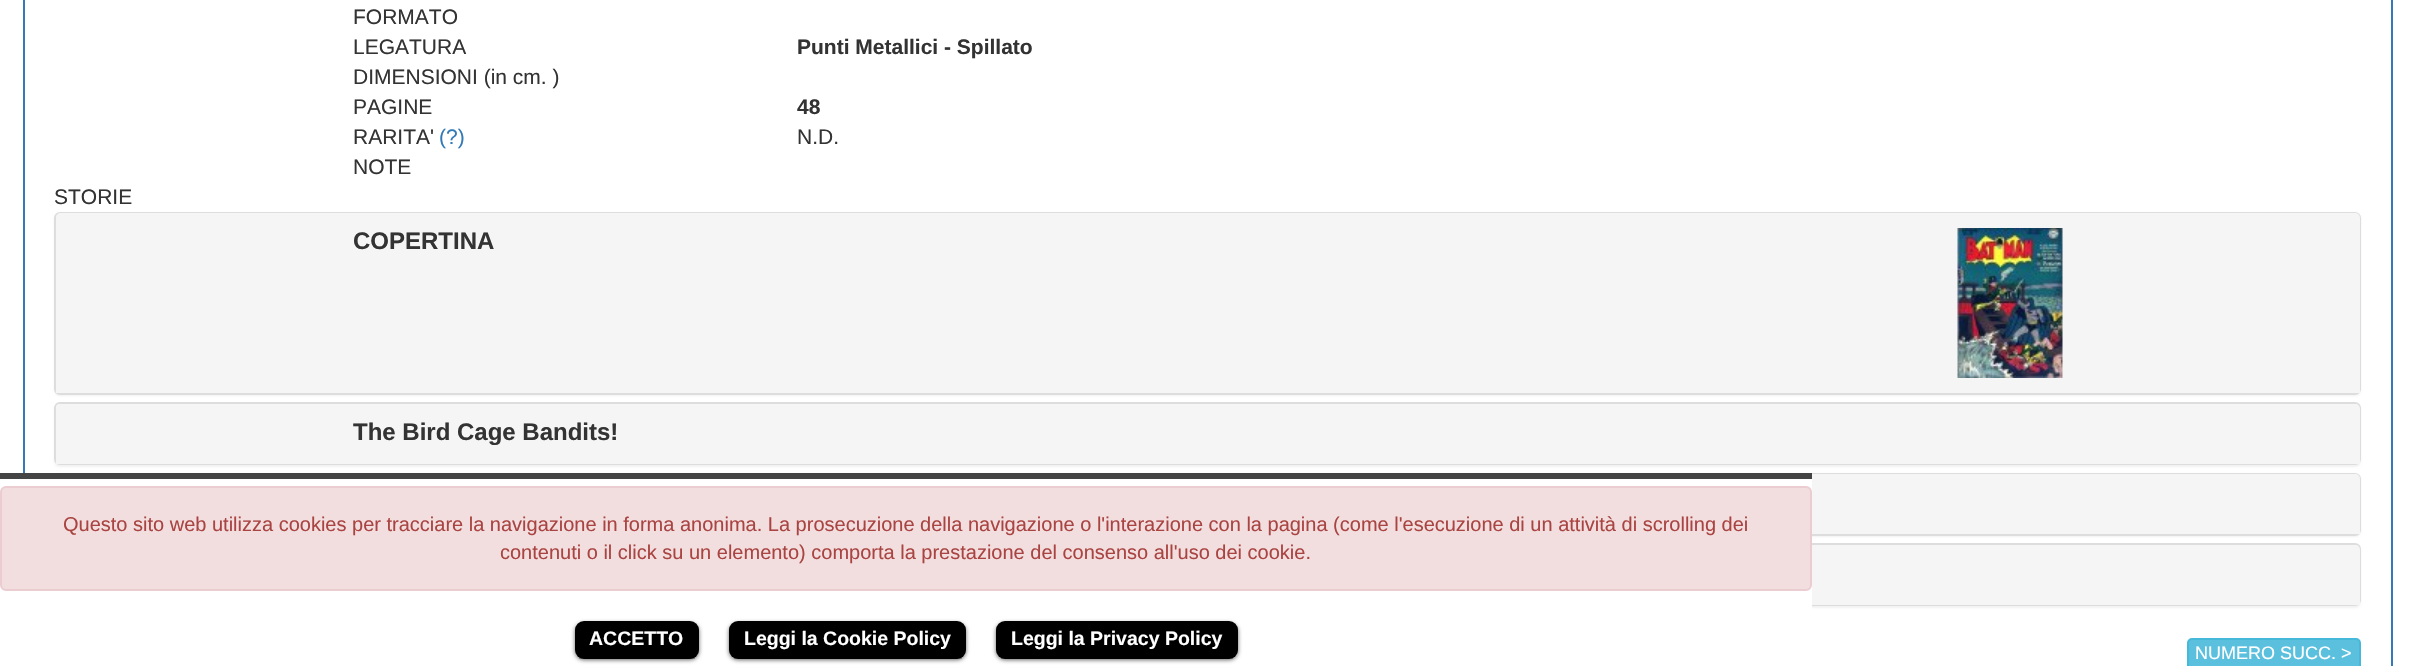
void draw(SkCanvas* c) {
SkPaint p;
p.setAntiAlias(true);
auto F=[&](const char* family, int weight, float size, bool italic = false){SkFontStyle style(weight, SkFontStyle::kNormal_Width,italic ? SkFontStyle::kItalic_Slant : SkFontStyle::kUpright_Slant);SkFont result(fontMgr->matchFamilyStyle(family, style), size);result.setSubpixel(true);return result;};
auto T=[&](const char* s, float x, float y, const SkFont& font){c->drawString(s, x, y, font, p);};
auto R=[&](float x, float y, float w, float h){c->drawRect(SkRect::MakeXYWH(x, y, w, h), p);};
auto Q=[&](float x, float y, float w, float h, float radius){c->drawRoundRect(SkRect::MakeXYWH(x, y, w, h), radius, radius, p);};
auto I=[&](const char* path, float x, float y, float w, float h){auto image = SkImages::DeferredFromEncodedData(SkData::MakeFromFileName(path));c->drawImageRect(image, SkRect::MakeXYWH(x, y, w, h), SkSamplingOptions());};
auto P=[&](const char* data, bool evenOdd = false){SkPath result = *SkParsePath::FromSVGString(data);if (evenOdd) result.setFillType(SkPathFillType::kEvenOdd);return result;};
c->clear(0xffffffff);
p.setStroke(true);
p.setStrokeWidth(2);
p.setColor(0xff337ab7);
c->drawRect(SkRect::MakeXYWH(24,-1,2368,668),p);
auto f1 = F("Liberation Sans",400,21);
p.setStroke(false);
p.setColor(0xff333333);
T("FORMATO",353,24,f1);
T("LEGATURA",353,54,f1);
auto f2 = F("Liberation Sans",700,21);
T("Punti Metallici - Spillato",797,54,f2);
T("DIMENSIONI (in cm. )",353,84,f1);
T("PAGINE",353,114,f1);
T("48",797,114,f2);
T("RARITA'",353,144,f1);
p.setColor(0xff337ab7);
T("(?)",439,144,f1);
p.setColor(0xff333333);
T("N.D.",797,144,f1);
T("NOTE",353,174,f1);
T("STORIE",54,204,f1);
p.setColor(0x0d000000);
p.setMaskFilter(SkMaskFilter::MakeBlur(kNormal_SkBlurStyle, 1));
c->drawRoundRect(SkRect::MakeXYWH(54,213,2307,183),6,6,p);
p.setMaskFilter(nullptr);
p.setStroke(true);
p.setColor(0xffdddddd);
c->drawRoundRect(SkRect::MakeXYWH(55,213,2305,181),5,5,p);
p.setStroke(false);
p.setColor(0xfff5f5f5);
c->drawPath(P("M61 213h2294c3 0 5 2 5 5v175h-2304v-175c0-3 2-5 5-5z"),p);
auto f3 = F("Liberation Sans",700,24);
p.setColor(0xff333333);
T("COPERTINA",353,249,f3);
I("1.png",1957,228,106,150);
p.setColor(0x0d000000);
p.setMaskFilter(SkMaskFilter::MakeBlur(kNormal_SkBlurStyle, 1));
c->drawRoundRect(SkRect::MakeXYWH(54,404,2307,63),6,6,p);
p.setMaskFilter(nullptr);
p.setColor(0xffffffff);
c->drawRoundRect(SkRect::MakeXYWH(55,403,2305,61),5,5,p);
p.setStroke(true);
p.setColor(0xffdddddd);
c->drawRoundRect(SkRect::MakeXYWH(55,403,2305,61),5,5,p);
p.setStroke(false);
p.setColor(0xfff5f5f5);
c->drawPath(P("M61 404h2294c3 0 5 2 5 5v55h-2304v-55c0-3 2-5 5-5z"),p);
p.setColor(0xff333333);
T("The Bird Cage Bandits!",353,440,f3);
p.setColor(0x0d000000);
p.setMaskFilter(SkMaskFilter::MakeBlur(kNormal_SkBlurStyle, 1));
c->drawRoundRect(SkRect::MakeXYWH(54,474,2307,63),6,6,p);
p.setMaskFilter(nullptr);
p.setStroke(true);
p.setColor(0xffdddddd);
c->drawRoundRect(SkRect::MakeXYWH(55,474,2305,61),5,5,p);
p.setStroke(false);
p.setColor(0xfff5f5f5);
c->drawPath(P("M61 474h2294c3 0 5 2 5 5v55h-2304v-55c0-3 2-5 5-5z"),p);
p.setColor(0x0d000000);
p.setMaskFilter(SkMaskFilter::MakeBlur(kNormal_SkBlurStyle, 1));
c->drawRoundRect(SkRect::MakeXYWH(54,545,2307,63),6,6,p);
p.setMaskFilter(nullptr);
p.setStroke(true);
p.setColor(0xffdddddd);
c->drawRoundRect(SkRect::MakeXYWH(55,544,2305,61),5,5,p);
p.setStroke(false);
p.setColor(0xfff5f5f5);
c->drawPath(P("M61 545h2294c3 0 5 2 5 5v55h-2304v-55c0-3 2-5 5-5z"),p);
p.setColor(0xff5bc0de);
c->drawRoundRect(SkRect::MakeXYWH(2188,639,172,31),4,4,p);
p.setStroke(true);
p.setColor(0xff46b8da);
c->drawRoundRect(SkRect::MakeXYWH(2188,639,172,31),4,4,p);
auto f4 = F("Liberation Sans",400,18);
p.setStroke(false);
p.setColor(0xffffffff);
T("NUMERO SUCC. >",2195,659,f4);
R(23,479,1789,187);
p.setColor(0xff444444);
R(0,473,1812,6);
p.setColor(0xfff2dede);
c->drawRoundRect(SkRect::MakeXYWH(1,487,1810,103),5,5,p);
p.setStroke(true);
p.setColor(0xffebccd1);
c->drawRoundRect(SkRect::MakeXYWH(1,487,1810,103),5,5,p);
auto f5 = F("Liberation Sans",400,20);
p.setStroke(false);
p.setColor(0xffa94442);
T("Questo sito web utilizza cookies per tracciare la navigazione in forma anonima. La prosecuzione della navigazione o l'interazione con la pagina (come l'esecuzione di un attività di scrolling dei",63,531,f5);
T("contenuti o il click su un elemento) comporta la prestazione del consenso all'uso dei cookie.",500,559,f5);
p.setColor(0x99000000);
p.setMaskFilter(SkMaskFilter::MakeBlur(kNormal_SkBlurStyle, 2));
c->drawRoundRect(SkRect::MakeXYWH(575,623,124,37),9,9,p);
p.setMaskFilter(nullptr);
p.setColor(0xff000000);
Q(575,621,124,38,9);
p.setColor(0x40000000);
R(579,657,116,2);
auto f6 = F("Liberation Sans",700,19.5);
p.setColor(0xffffffff);
T("ACCETTO",589,645,f6);
p.setColor(0x99000000);
p.setMaskFilter(SkMaskFilter::MakeBlur(kNormal_SkBlurStyle, 2));
c->drawRoundRect(SkRect::MakeXYWH(729,623,237,37),9,9,p);
p.setMaskFilter(nullptr);
p.setColor(0xff000000);
Q(729,621,237,38,9);
p.setColor(0x40000000);
R(734,657,228,2);
p.setColor(0xffffffff);
T("Leggi la Cookie Policy",744,645,f6);
p.setColor(0x99000000);
p.setMaskFilter(SkMaskFilter::MakeBlur(kNormal_SkBlurStyle, 2));
c->drawRoundRect(SkRect::MakeXYWH(996,623,242,37),9,9,p);
p.setMaskFilter(nullptr);
p.setColor(0xff000000);
Q(996,621,242,38,9);
p.setColor(0x40000000);
R(1001,658,232,1);
p.setColor(0xffffffff);
T("Leggi la Privacy Policy",1011,645,f6);
}
